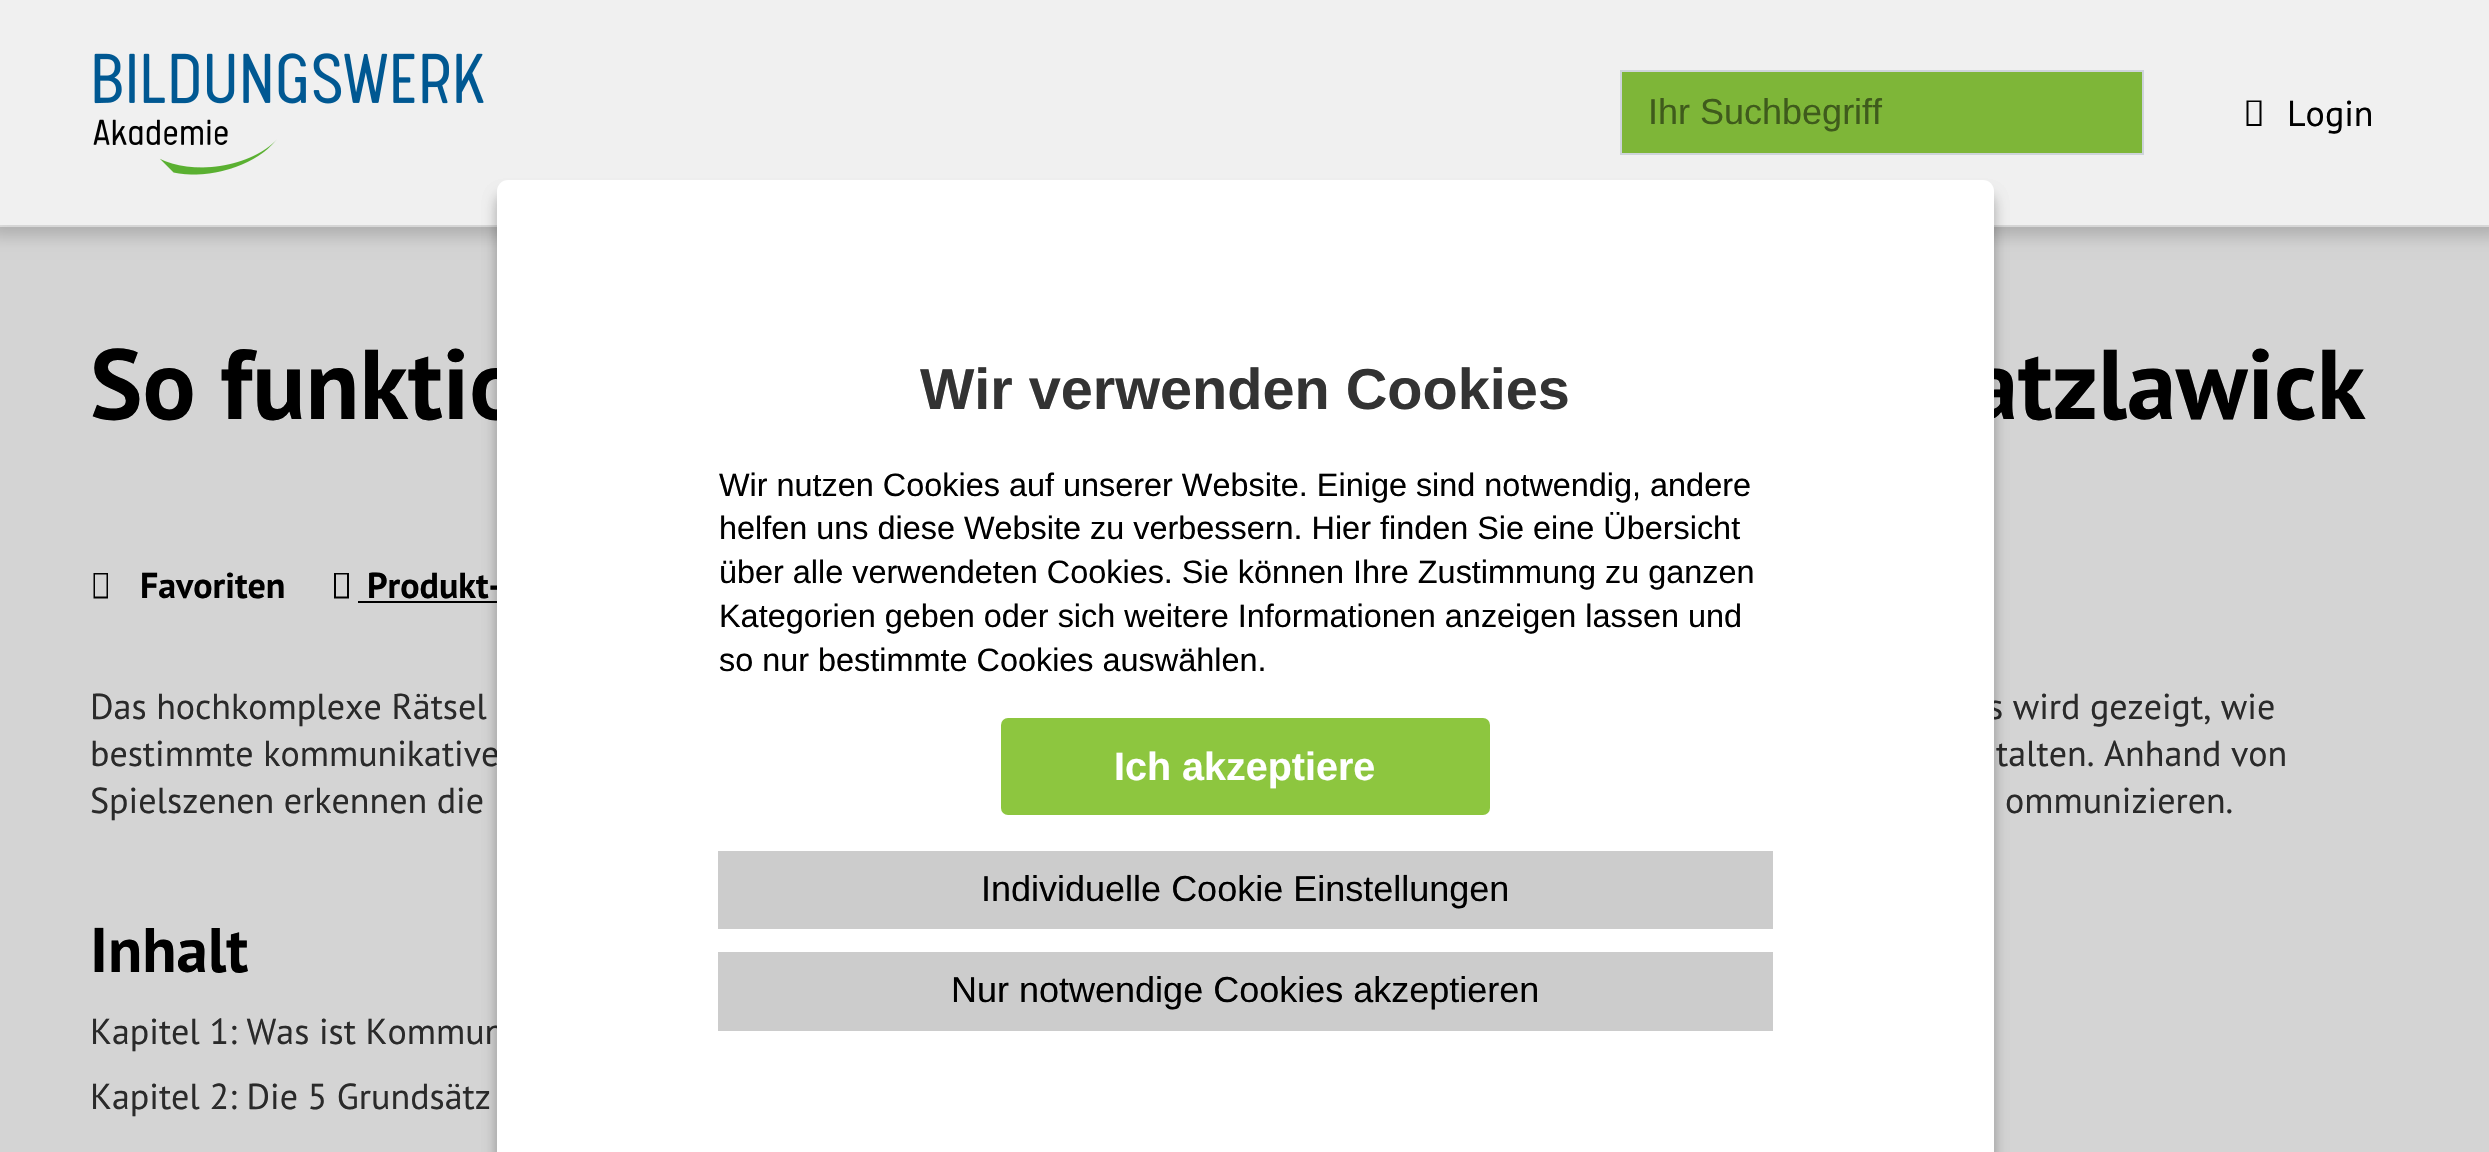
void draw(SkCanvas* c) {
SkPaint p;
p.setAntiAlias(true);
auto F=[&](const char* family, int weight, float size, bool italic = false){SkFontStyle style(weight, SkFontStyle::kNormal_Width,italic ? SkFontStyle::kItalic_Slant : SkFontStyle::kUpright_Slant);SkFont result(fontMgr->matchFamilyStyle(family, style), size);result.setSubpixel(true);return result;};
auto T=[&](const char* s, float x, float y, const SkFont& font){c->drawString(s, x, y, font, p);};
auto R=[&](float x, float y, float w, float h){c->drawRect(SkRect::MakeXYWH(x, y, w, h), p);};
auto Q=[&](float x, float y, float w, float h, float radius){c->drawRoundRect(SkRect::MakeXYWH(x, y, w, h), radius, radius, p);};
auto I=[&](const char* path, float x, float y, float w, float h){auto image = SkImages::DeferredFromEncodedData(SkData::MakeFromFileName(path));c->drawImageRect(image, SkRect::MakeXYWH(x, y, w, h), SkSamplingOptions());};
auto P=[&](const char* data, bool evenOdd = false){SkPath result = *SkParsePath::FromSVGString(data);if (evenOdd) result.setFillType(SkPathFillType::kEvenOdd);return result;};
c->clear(0xffffffff);
p.setColor(0xffd4d4d4);
R(0,227,2489,925);
p.setColor(0x2e000000);
p.setMaskFilter(SkMaskFilter::MakeBlur(kNormal_SkBlurStyle, 8));
c->drawRect(SkRect::MakeXYWH(-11,-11,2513,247),p);
p.setMaskFilter(nullptr);
p.setColor(0xfff0f0f0);
R(0,0,2489,225);
I("1.png",93,53,391,122);
p.setColor(0xff7eb638);
c->drawRect(SkRect::MakeXYWH(1621,71,522,83),p);
p.setStroke(true);
p.setStrokeWidth(2);
p.setColor(0xffced4da);
c->drawRect(SkRect::MakeXYWH(1621,71,522,83),p);
auto f1 = F("Liberation Sans",400,36);
p.setStroke(false);
p.setColor(0xff3f5b1c);
T("Ihr Suchbegriff",1648,124,f1);
p.setColor(0xff000000);
c->drawPath(P("M2246.5 126v-25.5h15v25.5zm2-2h11v-22h-11z"),p);
auto f2 = F("PT Sans",400,36);
T("Login",2287,126,f2);
auto f3 = F("PT Sans",700,99);
T("So funktio",90,419,f3);
T("atzlawick",1969,419,f3);
c->drawPath(P("M93.5 598.5v-25.5h14.5v25.5zm1.5-2h11.5v-22h-11.5z"),p);
auto f4 = F("PT Sans",700,36);
T("Favoriten",140,598,f4);
c->drawPath(P("M334 598.5v-25.5h15v25.5zm2-2h11v-22h-11z"),p);
T("Produkt-",367,598,f4);
R(358,601,139,2);
p.setColor(0xff2a2a2a);
T("Das hochkomplexe Rätsel",90,719,f2);
T("s wird gezeigt, wie",1988,719,f2);
T("bestimmte kommunikative",90,766,f2);
T("talten. Anhand von",1996,766,f2);
T("Spielszenen erkennen die",90,813,f2);
T("ommunizieren.",2005,813,f2);
auto f5 = F("PT Sans",700,63);
p.setColor(0xff000000);
T("Inhalt",90,972,f5);
p.setColor(0xff2a2a2a);
T("Kapitel 1: Was ist Kommun",90,1044,f2);
T("Kapitel 2: Die 5 Grundsätz",90,1109,f2);
p.setColor(0x12000000);
p.setMaskFilter(SkMaskFilter::MakeBlur(kNormal_SkBlurStyle, 7));
c->drawRoundRect(SkRect::MakeXYWH(497,194,1497,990),11,11,p);
p.setMaskFilter(nullptr);
p.setColor(0x40000000);
p.setMaskFilter(SkMaskFilter::MakeBlur(kNormal_SkBlurStyle, 7));
c->drawRoundRect(SkRect::MakeXYWH(497,194,1497,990),11,11,p);
p.setMaskFilter(nullptr);
p.setColor(0xffffffff);
Q(497,180,1497,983,11);
auto f6 = F("Liberation Sans",700,57.6);
p.setColor(0xff333333);
T("Wir verwenden Cookies",920,409,f6);
auto f7 = F("Liberation Sans",400,32.4);
p.setColor(0xff000000);
T("Wir nutzen Cookies auf unserer Website. Einige sind notwendig, andere",719,496,f7);
T("helfen uns diese Website zu verbessern. Hier finden Sie eine Übersicht",719,539,f7);
T("über alle verwendeten Cookies. Sie können Ihre Zustimmung zu ganzen",719,583,f7);
T("Kategorien geben oder sich weitere Informationen anzeigen lassen und",719,627,f7);
T("so nur bestimmte Cookies auswählen.",719,671,f7);
p.setColor(0xff8dc63f);
Q(1001,718,489,97,7);
auto f8 = F("Liberation Sans",700,39.5);
p.setColor(0xffffffff);
T("Ich akzeptiere",1114,780,f8);
p.setColor(0xffcccccc);
R(718,851,1055,78);
p.setColor(0xff000000);
T("Individuelle Cookie Einstellungen",981,901,f1);
p.setColor(0xffcccccc);
R(718,952,1055,79);
p.setColor(0xff000000);
T("Nur notwendige Cookies akzeptieren",951,1002,f1);
}
